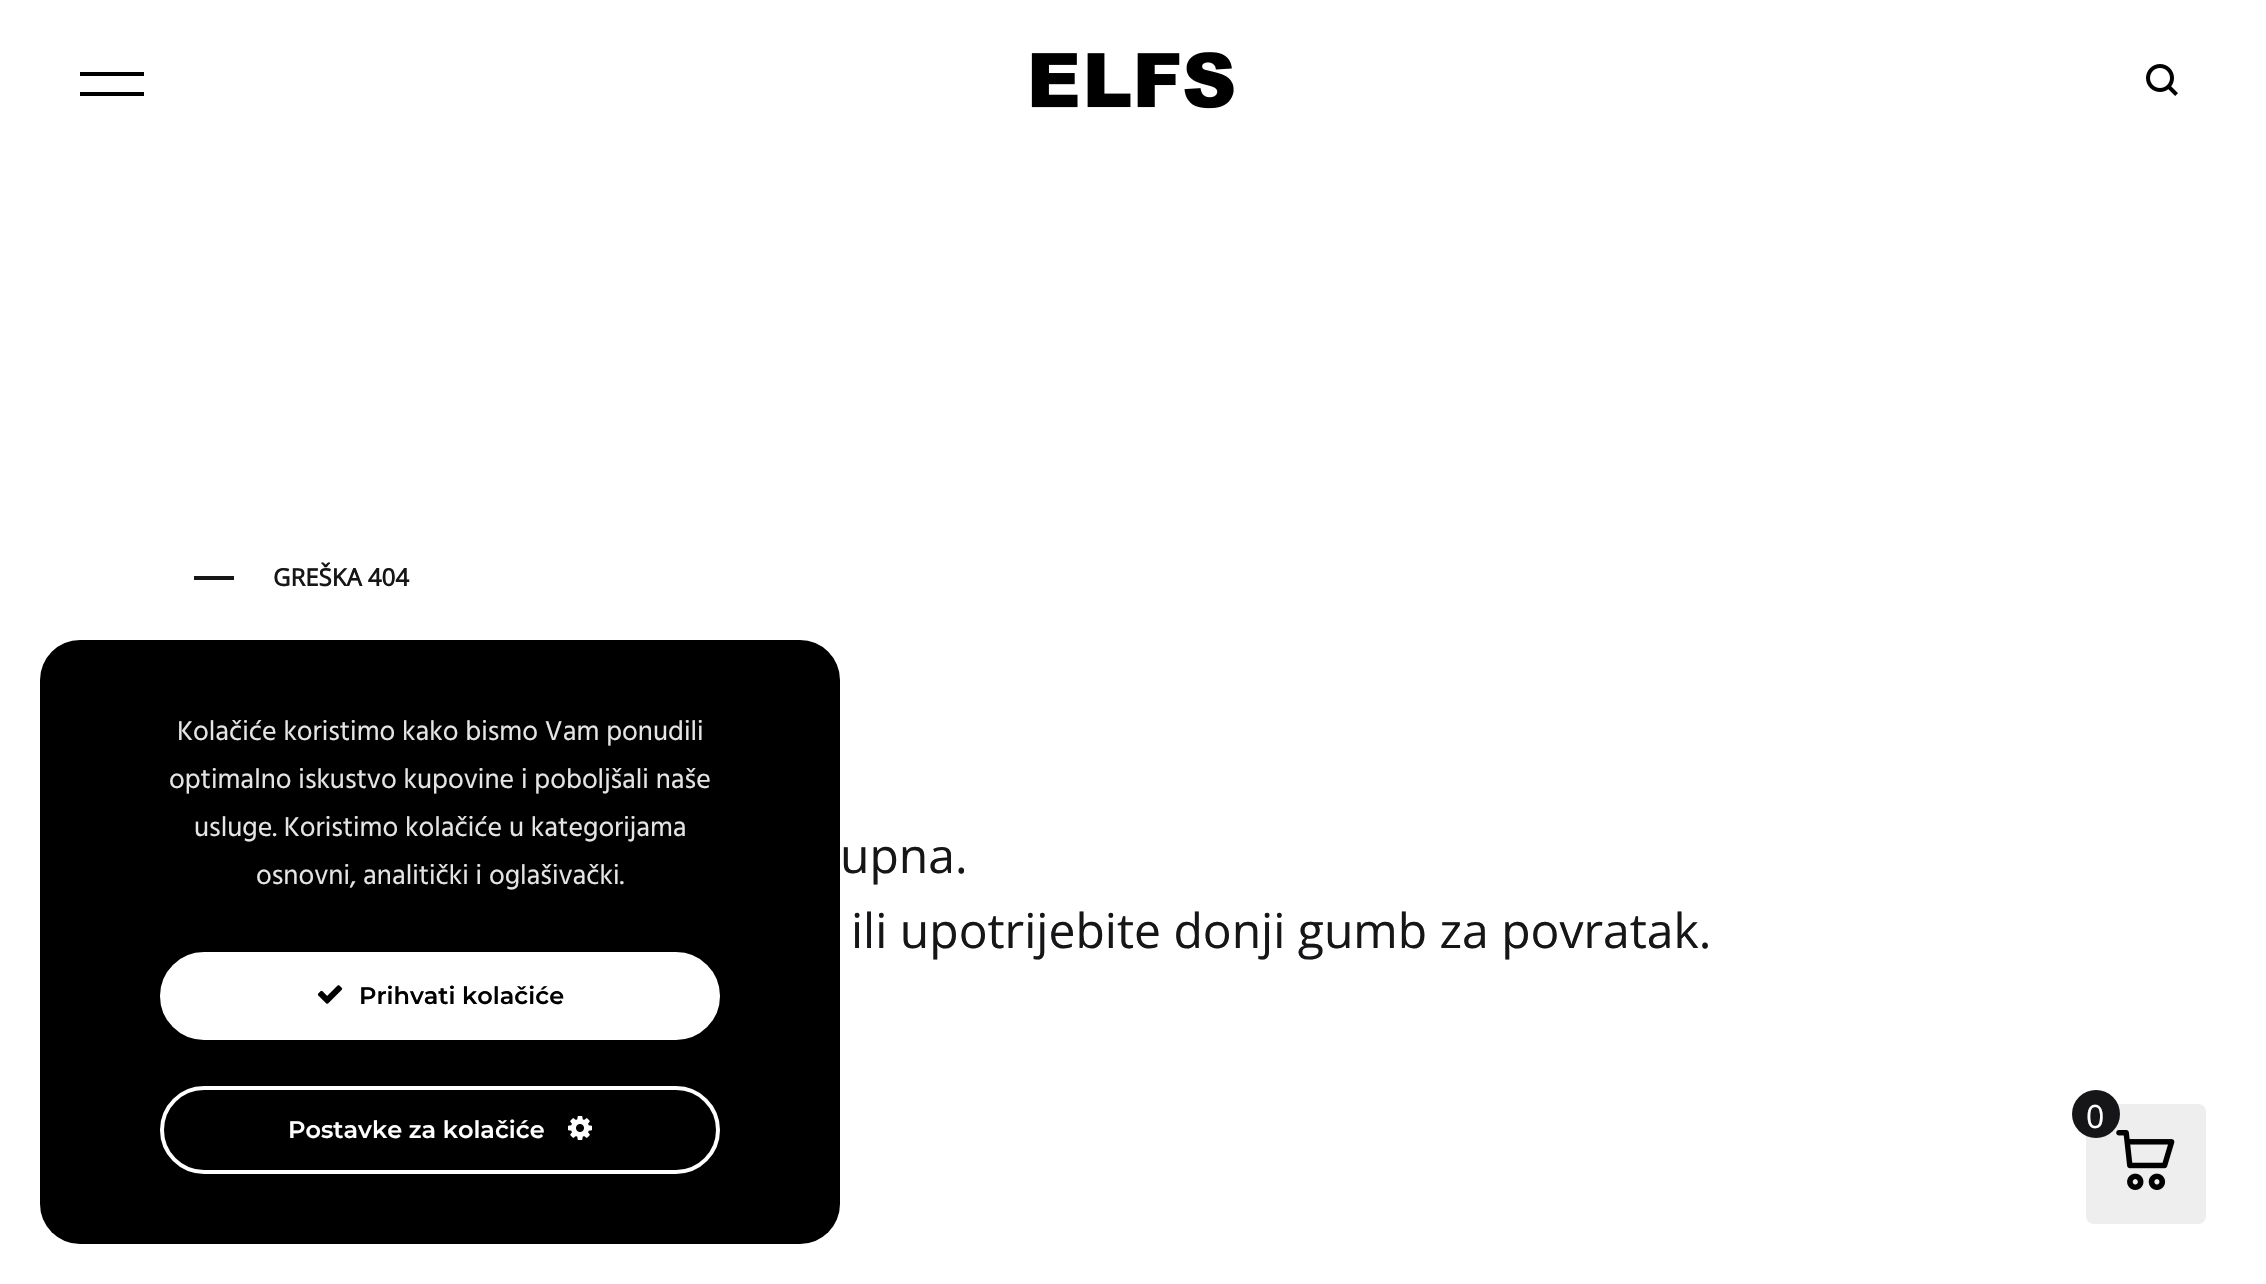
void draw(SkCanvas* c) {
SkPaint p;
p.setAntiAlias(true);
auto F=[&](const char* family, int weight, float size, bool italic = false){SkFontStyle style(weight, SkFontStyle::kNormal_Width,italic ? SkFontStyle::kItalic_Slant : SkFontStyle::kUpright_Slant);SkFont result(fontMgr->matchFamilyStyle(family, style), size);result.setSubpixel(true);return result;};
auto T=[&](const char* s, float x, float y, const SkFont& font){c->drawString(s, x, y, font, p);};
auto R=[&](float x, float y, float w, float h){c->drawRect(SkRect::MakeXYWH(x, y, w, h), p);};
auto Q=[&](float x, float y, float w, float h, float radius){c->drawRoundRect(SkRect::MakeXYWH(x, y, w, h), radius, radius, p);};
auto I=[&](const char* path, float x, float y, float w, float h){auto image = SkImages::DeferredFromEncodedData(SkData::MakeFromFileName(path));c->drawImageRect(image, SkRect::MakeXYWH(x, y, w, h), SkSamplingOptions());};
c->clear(0xffffffff);
p.setColor(0xff000000);
R(80,72,64,4);
R(80,92,64,4);
I("1.png",1031,52,203,57);
I("2.png",2146,64,32,32);
p.setColor(0xff161619);
R(194,576,40,4);
auto f1 = F("Open Sans",700,24);
T("GREŠKA 404",273,586,f1);
auto f2 = F("Open Sans",400,48);
T("upna.",840,873,f2);
T("ili upotrijebite donji gumb za povratak.",851,948,f2);
p.setColor(0xff000000);
Q(40,640,800,604,40);
auto f3 = F("Hind",400,28);
p.setColor(0xffe5e5e5);
T("Kolačiće koristimo kako bismo Vam ponudili",177,740,f3);
T("optimalno iskustvo kupovine i poboljšali naše",169,788,f3);
T("usluge. Koristimo kolačiće u kategorijama",194,836,f3);
T("osnovni, analitički i oglašivački.",256,884,f3);
p.setColor(0xffffffff);
c->drawRoundRect(SkRect::MakeXYWH(161,953,558,86),43,43,p);
p.setStroke(true);
p.setStrokeWidth(2);
c->drawRoundRect(SkRect::MakeXYWH(161,953,558,86),43,43,p);
I("3.png",317,985,26,19);
auto f4 = F("Montserrat",600,24);
p.setStroke(false);
p.setColor(0xff000000);
T("Prihvati kolačiće",359,1004,f4);
p.setStroke(true);
p.setStrokeWidth(4);
p.setColor(0xffffffff);
c->drawRoundRect(SkRect::MakeXYWH(162,1088,556,84),42,42,p);
p.setStroke(false);
T("Postavke za kolačiće",288,1138,f4);
I("4.png",568,1116,24,24);
p.setColor(0xffeeeeee);
Q(2086,1104,120,120,8);
I("5.png",2116,1130,59,60);
p.setColor(0xff161619);
c->drawCircle(2096,1114,24,p);
auto f5 = F("Open Sans",400,32);
p.setColor(0xffffffff);
T("0",2086,1128,f5);
}
